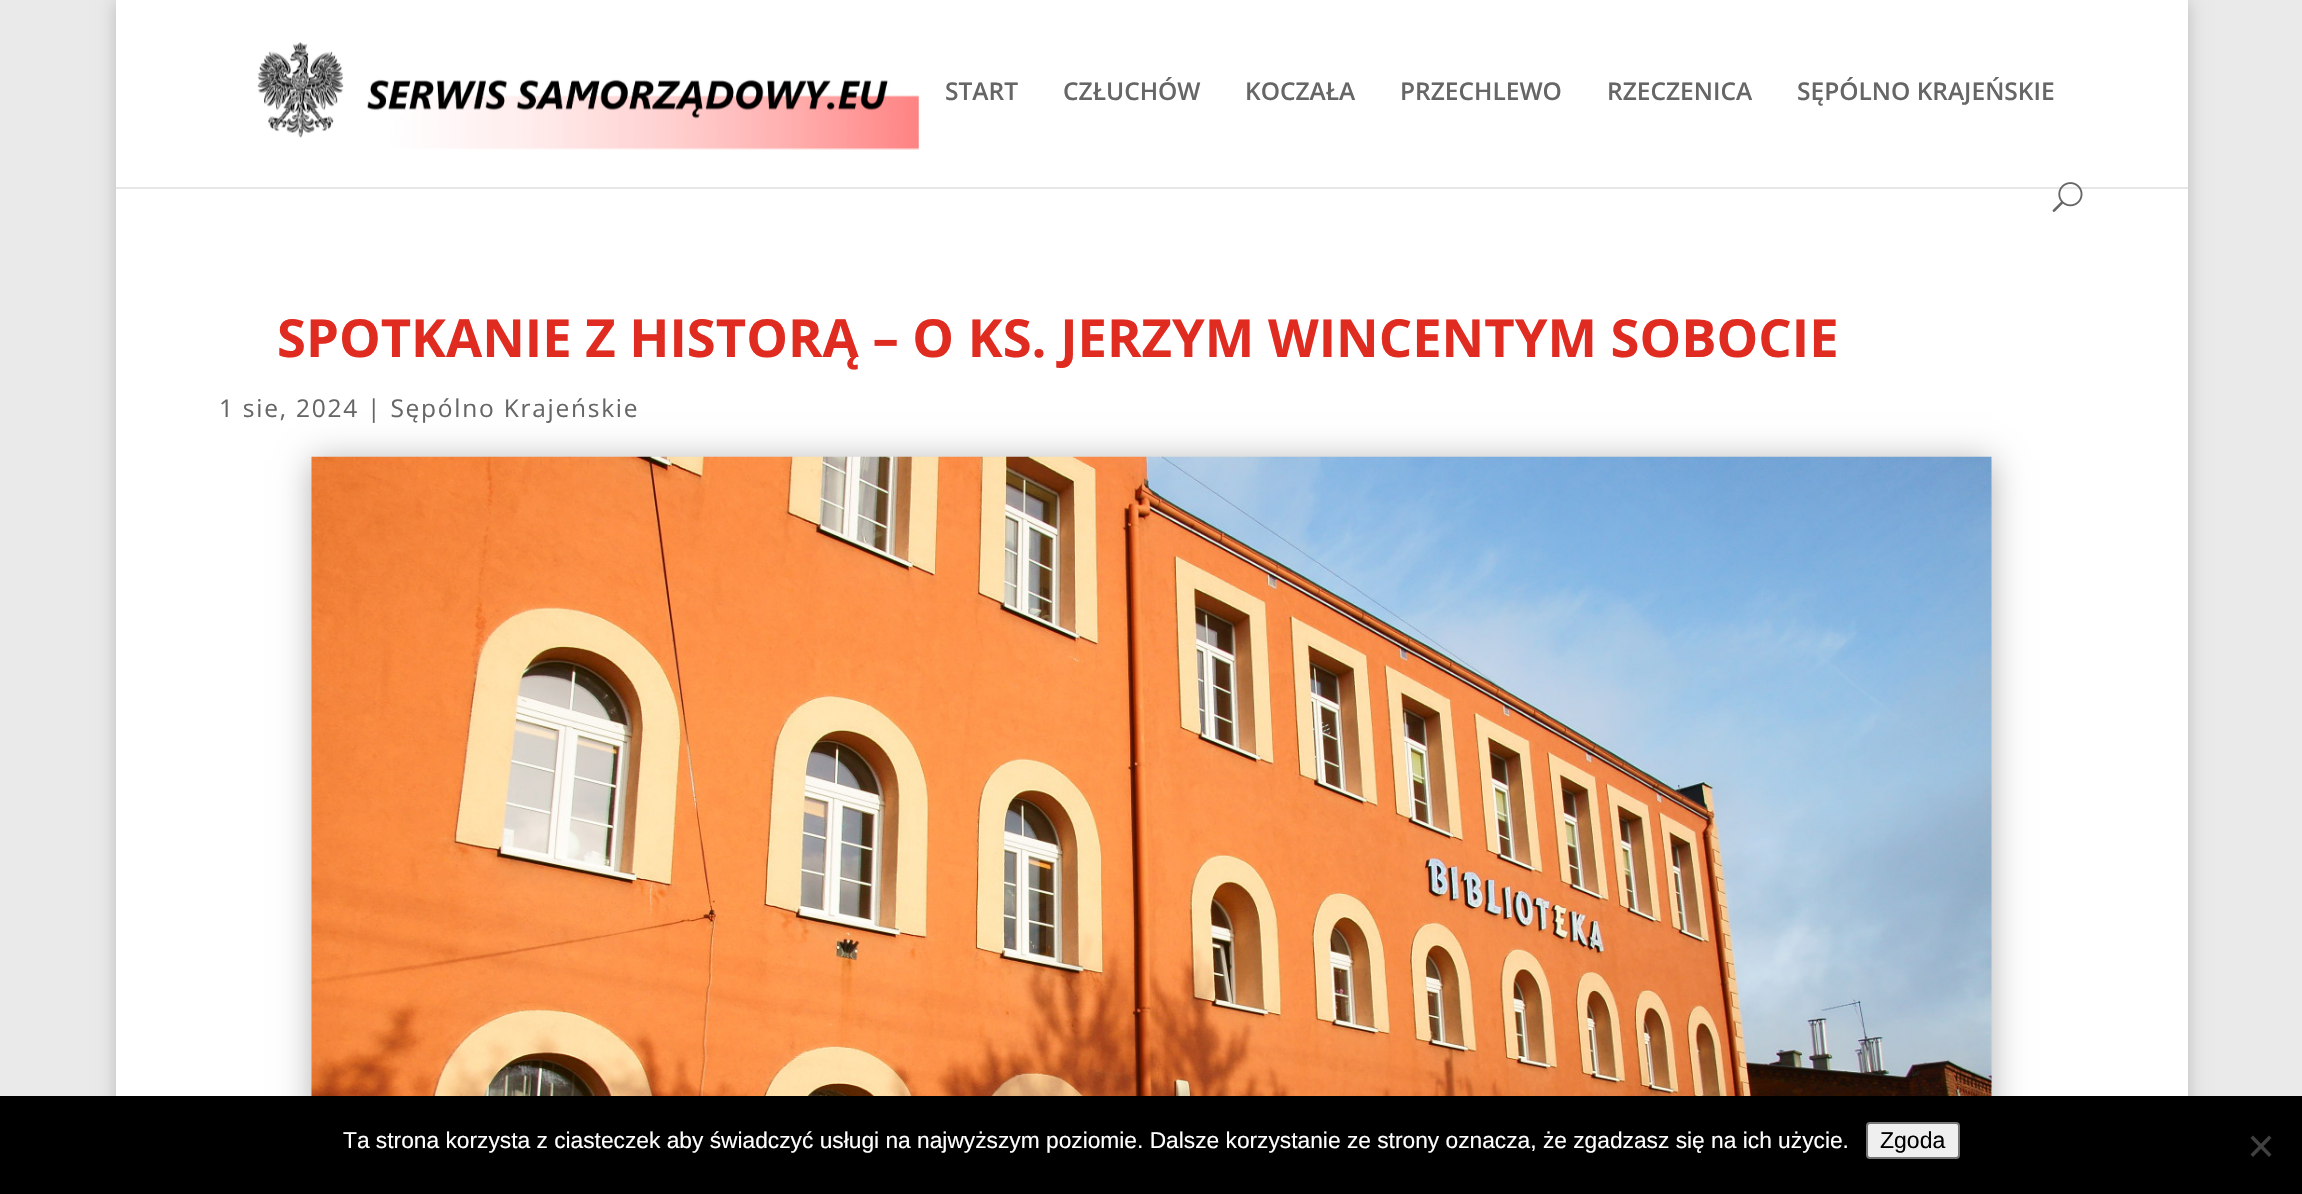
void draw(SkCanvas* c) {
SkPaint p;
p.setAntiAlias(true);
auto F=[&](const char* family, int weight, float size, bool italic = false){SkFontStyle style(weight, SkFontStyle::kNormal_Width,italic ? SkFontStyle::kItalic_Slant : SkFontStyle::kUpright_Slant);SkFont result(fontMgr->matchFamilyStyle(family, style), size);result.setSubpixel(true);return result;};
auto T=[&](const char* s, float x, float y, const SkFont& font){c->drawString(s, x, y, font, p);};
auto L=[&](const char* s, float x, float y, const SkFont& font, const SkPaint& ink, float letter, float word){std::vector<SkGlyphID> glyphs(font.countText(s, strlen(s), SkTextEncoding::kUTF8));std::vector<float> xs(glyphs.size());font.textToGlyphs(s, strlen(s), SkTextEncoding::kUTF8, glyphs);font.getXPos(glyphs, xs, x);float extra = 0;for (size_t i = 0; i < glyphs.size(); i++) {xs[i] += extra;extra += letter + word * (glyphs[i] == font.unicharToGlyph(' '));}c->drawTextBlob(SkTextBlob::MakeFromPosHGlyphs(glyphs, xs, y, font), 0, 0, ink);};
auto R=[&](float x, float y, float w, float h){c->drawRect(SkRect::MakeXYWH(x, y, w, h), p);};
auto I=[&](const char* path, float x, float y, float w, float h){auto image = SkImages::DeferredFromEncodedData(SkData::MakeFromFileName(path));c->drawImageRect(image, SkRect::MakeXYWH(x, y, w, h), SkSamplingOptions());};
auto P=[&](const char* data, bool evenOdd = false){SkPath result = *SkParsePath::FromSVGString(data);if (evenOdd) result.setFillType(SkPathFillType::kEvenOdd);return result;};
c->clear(0xffeaeaea);
p.setColor(0x33000000);
p.setMaskFilter(SkMaskFilter::MakeBlur(kNormal_SkBlurStyle, 9));
c->drawRect(SkRect::MakeXYWH(116,0,2072,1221),p);
p.setMaskFilter(nullptr);
p.setColor(0xffe6e6e6);
c->drawPath(P("M116 187v2h2072v-187v185z"),p);
p.setColor(0xffffffff);
R(116,0,2072,187);
I("1.png",257,42,662,108);
auto f1 = F("Open Sans",600,24.5);
p.setColor(0xff666666);
T("START",945,100,f1);
T("CZŁUCHÓW",1063,100,f1);
T("KOCZAŁA",1245,100,f1);
T("PRZECHLEWO",1400,100,f1);
T("RZECZENICA",1607,100,f1);
T("SĘPÓLNO KRAJEŃSKIE",1797,100,f1);
p.setColor(0xffffffff);
R(116,189,2072,907);
I("2.png",2052,182,31,30);
auto f2 = F("Open Sans",700,52.5);
p.setColor(0xffe02b20);
T("SPOTKANIE Z HISTORĄ – O KS. JERZYM WINCENTYM SOBOCIE",277,357,f2);
p.setColor(0x4d000000);
p.setMaskFilter(SkMaskFilter::MakeBlur(kNormal_SkBlurStyle, 16));
c->drawRect(SkRect::MakeXYWH(312,460,1680,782),p);
p.setMaskFilter(nullptr);
auto f3 = F("Open Sans",400,24.5);
p.setColor(0xff666666);
L("1 sie, 2024 | Sępólno Krajeńskie",219,417,f3,p,1.75,0);
I("3.png",311,456,1681,640);
p.setColor(0xff000000);
R(0,1096,2302,98);
auto f4 = F("Liberation Sans",400,22.75);
p.setColor(0xffffffff);
T("Ta strona korzysta z ciasteczek aby świadczyć usługi na najwyższym poziomie. Dalsze korzystanie ze strony oznacza, że zgadzasz się na ich użycie.",343,1148,f4);
p.setColor(0xffefefef);
c->drawRoundRect(SkRect::MakeXYWH(1867,1123,92,35),3,3,p);
p.setStroke(true);
p.setStrokeWidth(2);
p.setColor(0xff767676);
c->drawRoundRect(SkRect::MakeXYWH(1867,1123,92,35),3,3,p);
auto f5 = F("Liberation Sans",400,23);
p.setStroke(false);
p.setColor(0xff000000);
T("Zgoda",1880,1148,f5);
p.setColor(0xff404040);
c->drawPath(P("M2269 1135.5l2.5 2.5l-18.5 19l-2.5-2.5z"),p);
c->drawPath(P("M2250.5 1138l2.5-2.5l18.5 19l-2.5 2.5z"),p);
}
